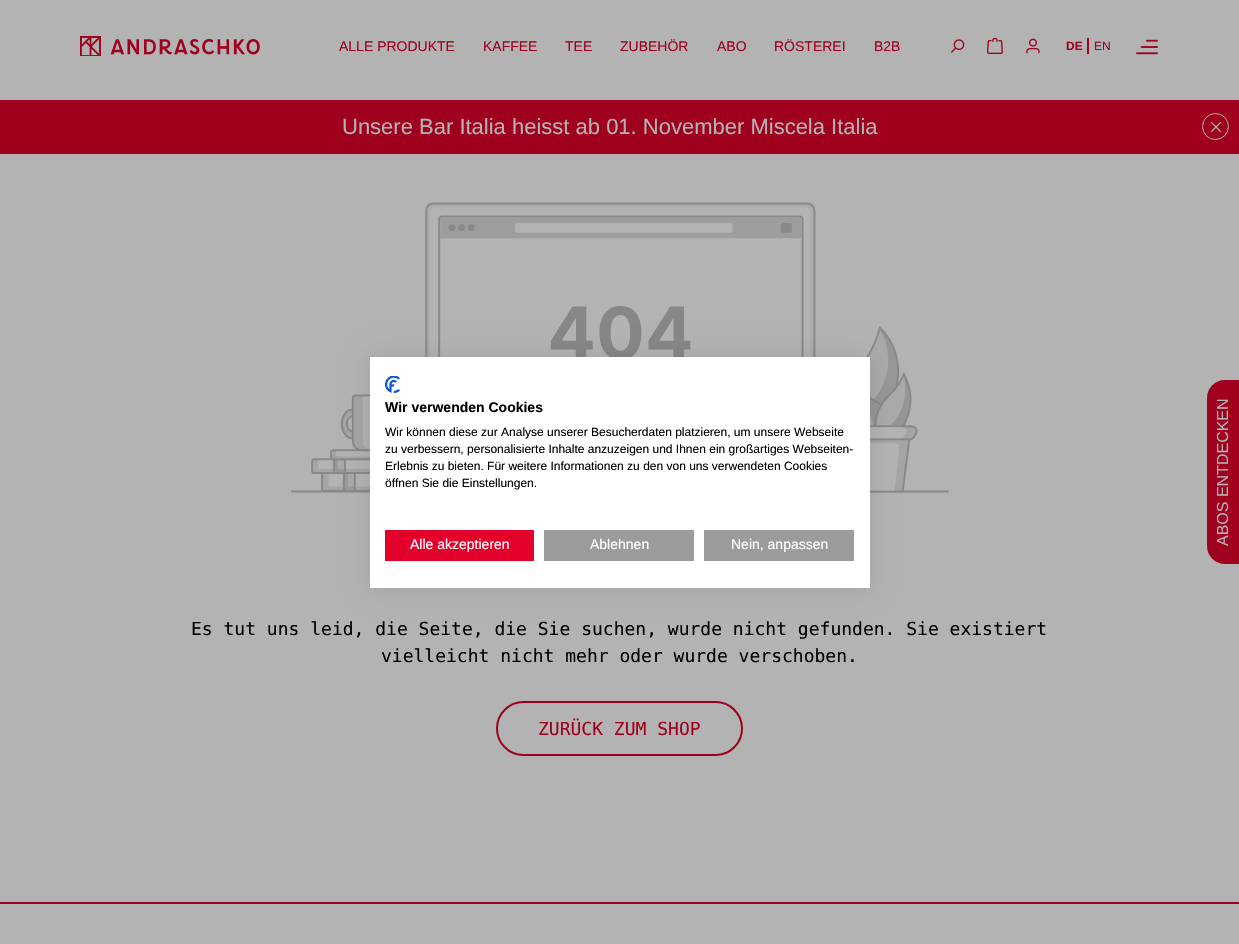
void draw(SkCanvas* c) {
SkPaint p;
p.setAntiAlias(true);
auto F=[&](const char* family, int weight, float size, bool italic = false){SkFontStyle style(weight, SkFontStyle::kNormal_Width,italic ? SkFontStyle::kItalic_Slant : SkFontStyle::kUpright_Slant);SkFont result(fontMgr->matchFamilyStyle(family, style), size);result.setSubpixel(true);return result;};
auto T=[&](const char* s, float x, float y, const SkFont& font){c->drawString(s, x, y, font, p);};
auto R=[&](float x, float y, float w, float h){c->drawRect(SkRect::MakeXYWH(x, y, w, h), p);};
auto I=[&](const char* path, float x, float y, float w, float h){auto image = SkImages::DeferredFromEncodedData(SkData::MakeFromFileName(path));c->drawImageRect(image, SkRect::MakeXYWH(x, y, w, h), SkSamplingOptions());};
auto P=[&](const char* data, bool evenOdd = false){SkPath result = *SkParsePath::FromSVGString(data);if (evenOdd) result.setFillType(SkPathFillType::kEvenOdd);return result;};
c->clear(0xffb3b3b3);
I("1.png",80,36,180,20);
auto f1 = F("Liberation Sans",400,14);
p.setColor(0xff9f001e);
T("ALLE PRODUKTE",339,51,f1);
T("KAFFEE",483,51,f1);
T("TEE",565,51,f1);
T("ZUBEHÖR",620,51,f1);
T("ABO",717,51,f1);
T("RÖSTEREI",774,51,f1);
T("B2B",874,51,f1);
I("2.png",951,39,14,14);
I("3.png",987,38,16,16);
I("4.png",1026,38,14,16);
auto f2 = F("Liberation Sans",700,12);
T("DE",1066,50,f2);
R(1087,38,2,16);
auto f3 = F("Liberation Sans",400,12);
T("EN",1094,50,f3);
I("5.png",1136,39,22,16);
c->drawPath(P("M1239 564h-14c-10 0-18-8-18-18v-148c0-10 8-18 18-18h14z"),p);
auto f4 = F("Liberation Sans",400,16);
p.setColor(0xffb3b3b3);
c->save();
c->rotate(-90,1228,546);
T("ABOS ENTDECKEN",1228,546,f4);
c->restore();
p.setColor(0xff9f001e);
R(0,100,1239,54);
auto f5 = F("Liberation Sans",400,22);
p.setColor(0xffb3b3b3);
T("Unsere Bar Italia heisst ab 01. November Miscela Italia",342,134,f5);
I("6.png",1211,122,10,10);
p.setStroke(true);
p.setStrokeWidth(1);
c->drawCircle(1215.5,126.5,13,p);
I("7.png",291,202,658,291);
auto f6 = F("DejaVu Sans Mono",400,18);
p.setStroke(false);
p.setColor(0xff000000);
T("Es tut uns leid, die Seite, die Sie suchen, wurde nicht gefunden. Sie existiert",191,635,f6);
T("vielleicht nicht mehr oder wurde verschoben.",381,662,f6);
p.setStroke(true);
p.setStrokeWidth(2);
p.setColor(0xff9f001e);
c->drawRoundRect(SkRect::MakeXYWH(497,702,245,53),26.5,26.5,p);
p.setStroke(false);
T("ZURÜCK ZUM SHOP",538,735,f6);
p.setColor(0x1a000000);
p.setMaskFilter(SkMaskFilter::MakeBlur(kNormal_SkBlurStyle, 12));
c->drawRect(SkRect::MakeXYWH(370,357,500,231),p);
p.setMaskFilter(nullptr);
p.setColor(0xffffffff);
R(370,357,500,231);
I("8.png",385,376,15,18);
auto f7 = F("Liberation Sans",700,14);
p.setColor(0xff000000);
T("Wir verwenden Cookies",385,412,f7);
T("Wir können diese zur Analyse unserer Besucherdaten platzieren, um unsere Webseite",385,436,f3);
T("zu verbessern, personalisierte Inhalte anzuzeigen und Ihnen ein großartiges Webseiten-",385,453,f3);
T("Erlebnis zu bieten. Für weitere Informationen zu den von uns verwendeten Cookies",385,470,f3);
T("öffnen Sie die Einstellungen.",385,487,f3);
p.setColor(0xffe3002b);
R(385,530,149,31);
p.setColor(0xffffffff);
T("Alle akzeptieren",410,549,f1);
p.setColor(0xff9b9b9b);
R(544,530,150,31);
p.setColor(0xffffffff);
T("Ablehnen",590,549,f1);
p.setColor(0xff9b9b9b);
R(704,530,150,31);
p.setColor(0xffffffff);
T("Nein, anpassen",731,549,f1);
p.setColor(0xff9f001e);
R(0,902,1239,2);
}
